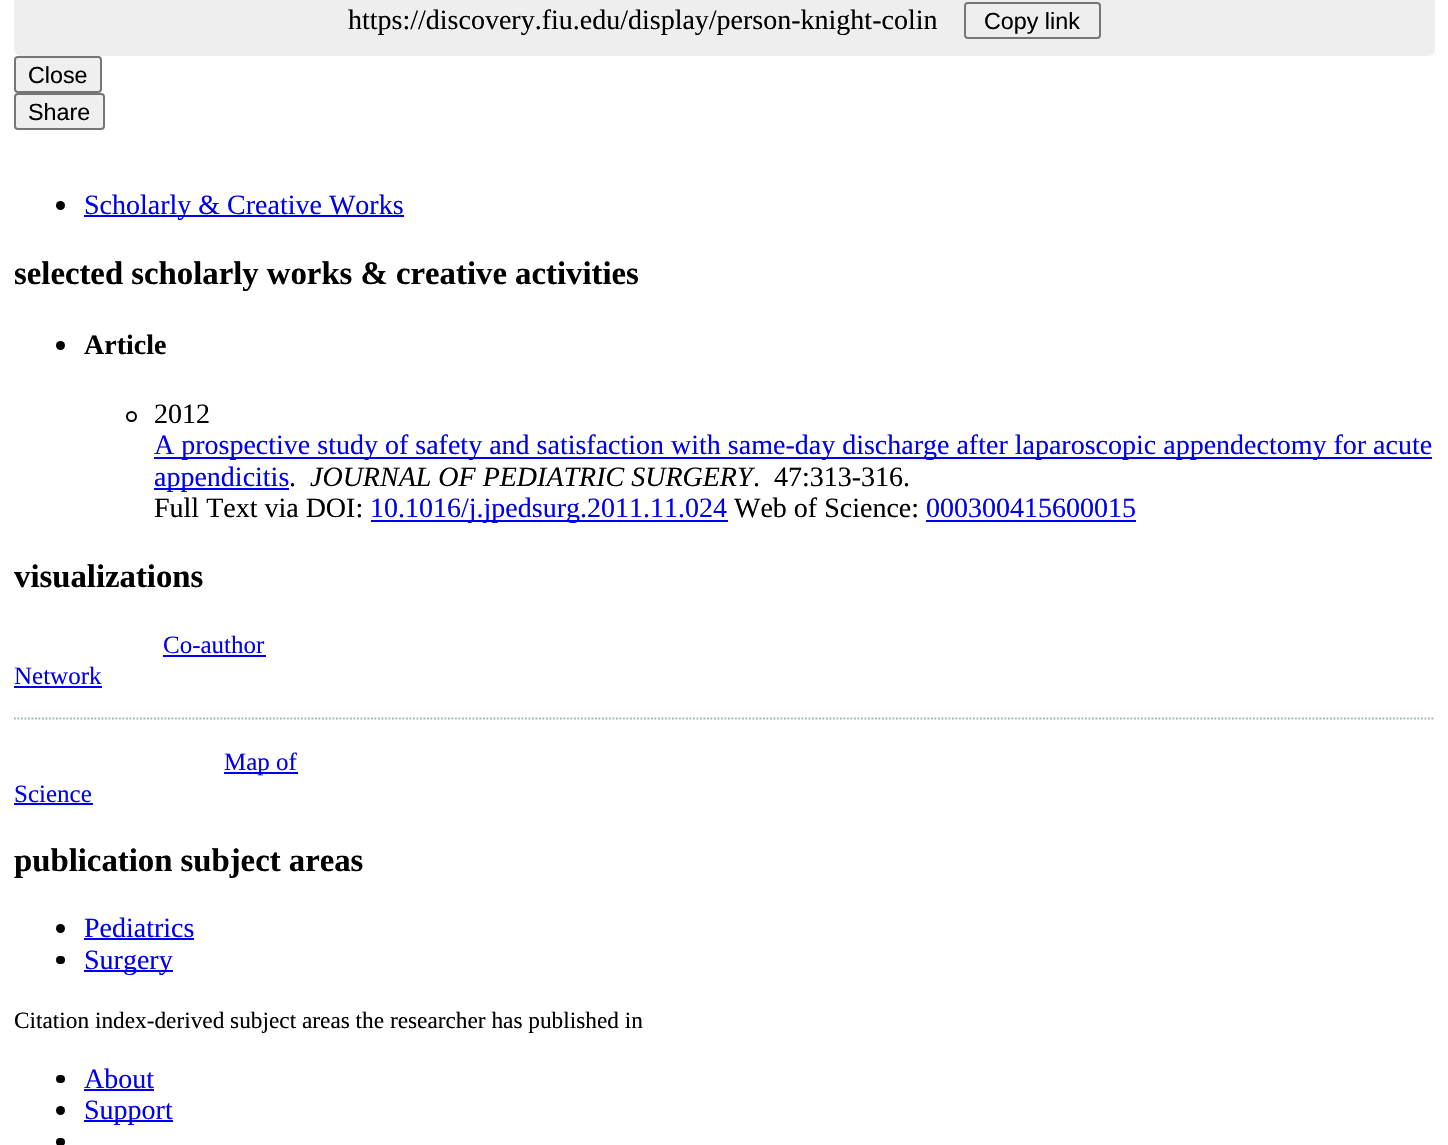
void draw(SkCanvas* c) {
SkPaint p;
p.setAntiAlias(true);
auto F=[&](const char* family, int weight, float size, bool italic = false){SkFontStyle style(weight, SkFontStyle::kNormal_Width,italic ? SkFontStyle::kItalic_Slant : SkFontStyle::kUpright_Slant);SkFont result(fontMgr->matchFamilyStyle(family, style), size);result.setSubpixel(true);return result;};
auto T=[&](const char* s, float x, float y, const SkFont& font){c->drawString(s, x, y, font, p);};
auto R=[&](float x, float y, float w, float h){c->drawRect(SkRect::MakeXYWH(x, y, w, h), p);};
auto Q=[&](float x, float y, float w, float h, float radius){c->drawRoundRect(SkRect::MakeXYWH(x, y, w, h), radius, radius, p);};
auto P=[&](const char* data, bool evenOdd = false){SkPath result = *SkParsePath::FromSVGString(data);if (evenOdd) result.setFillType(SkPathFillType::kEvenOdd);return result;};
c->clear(0xffffffff);
p.setColor(0xffeeeeee);
Q(14,-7,1421,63,7);
auto f1 = F("Liberation Serif",400,28);
p.setColor(0xff000000);
T("https://discovery.fiu.edu/display/person-knight-colin",348,29,f1);
p.setStroke(true);
p.setStrokeWidth(2);
p.setColor(0xff767676);
c->drawRoundRect(SkRect::MakeXYWH(965,3,135,35),3,3,p);
auto f2 = F("Liberation Sans",400,23.3);
p.setStroke(false);
p.setColor(0xff000000);
T("Copy link",984,29,f2);
p.setColor(0xffefefef);
c->drawRoundRect(SkRect::MakeXYWH(15,57,86,35),3,3,p);
p.setStroke(true);
p.setColor(0xff767676);
c->drawRoundRect(SkRect::MakeXYWH(15,57,86,35),3,3,p);
p.setStroke(false);
p.setColor(0xff000000);
T("Close",28,83,f2);
p.setColor(0xffefefef);
c->drawRoundRect(SkRect::MakeXYWH(15,94,89,35),3,3,p);
p.setStroke(true);
p.setColor(0xff767676);
c->drawRoundRect(SkRect::MakeXYWH(15,94,89,35),3,3,p);
p.setStroke(false);
p.setColor(0xff000000);
T("Share",28,120,f2);
c->drawCircle(60.5,205.5,4.5,p);
p.setColor(0xff0000ee);
R(84,215,320,2);
T("Scholarly & Creative Works",84,214,f1);
auto f3 = F("Liberation Serif",700,32.75);
p.setColor(0xff000000);
T("selected scholarly works & creative activities",14,284,f3);
c->drawCircle(60.5,345.5,4.5,p);
auto f4 = F("Liberation Serif",700,28);
T("Article",84,354,f4);
p.setStroke(true);
c->drawCircle(131.5,416.5,4.5,p);
p.setStroke(false);
T("2012",154,423,f1);
p.setColor(0xff0000ee);
R(154,457,1278,2);
T("A prospective study of safety and satisfaction with same-day discharge after laparoscopic appendectomy for acute",154,454,f1);
R(154,488,135,2);
T("appendicitis",154,486,f1);
p.setColor(0xff000000);
T(".",289,486,f1);
auto f5 = F("Liberation Serif",400,28,true);
T("JOURNAL OF PEDIATRIC SURGERY",310,486,f5);
T("47:313-316.",774,486,f1);
T(".",753,486,f1);
T("Full Text via DOI:",154,517,f1);
p.setColor(0xff0000ee);
R(371,520,357,2);
T("10.1016/j.jpedsurg.2011.11.024",370,517,f1);
p.setColor(0xff000000);
T("Web of Science:",734,517,f1);
p.setColor(0xff0000ee);
T("000300415600015",926,517,f1);
R(926,520,210,2);
p.setColor(0xff000000);
T("visualizations",14,587,f3);
auto f6 = F("Liberation Serif",400,25);
p.setColor(0xff0000ee);
T("Co-author",163,653,f6);
R(163,655,103,2);
T("Network",14,684,f6);
R(14,686,88,2);
p.setStroke(true);
p.setStrokeWidth(1.8);
p.setColor(0xffa6b1b0);
p.setPathEffect(SkDashPathEffect::Make({{1.75f,1.75f}}, 0));
c->drawPath(P("M14 718.5h1421"),p);
p.setPathEffect(nullptr);
p.setStroke(false);
p.setColor(0xff0000ee);
R(224,772,74,2);
T("Map of",224,770,f6);
T("Science",14,802,f6);
R(14,803,79,2);
p.setColor(0xff000000);
T("publication subject areas",14,871,f3);
c->drawCircle(60.5,928.5,4.5,p);
p.setColor(0xff0000ee);
T("Pediatrics",84,937,f1);
R(84,938,110,2);
p.setColor(0xff000000);
Q(56,956,9,8,4);
p.setColor(0xff0000ee);
R(84,970,89,2);
T("Surgery",84,969,f1);
auto f7 = F("Liberation Serif",400,23.3);
p.setColor(0xff000000);
T("Citation index-derived subject areas the researcher has published in",14,1028,f7);
Q(56,1075,9,8,4);
p.setColor(0xff0000ee);
T("About",84,1088,f1);
R(84,1089,70,2);
p.setColor(0xff000000);
c->drawCircle(60.5,1110.5,4.5,p);
p.setColor(0xff0000ee);
R(84,1120,89,2);
T("Support",84,1119,f1);
p.setColor(0xff000000);
Q(56,1138,9,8,4);
}
